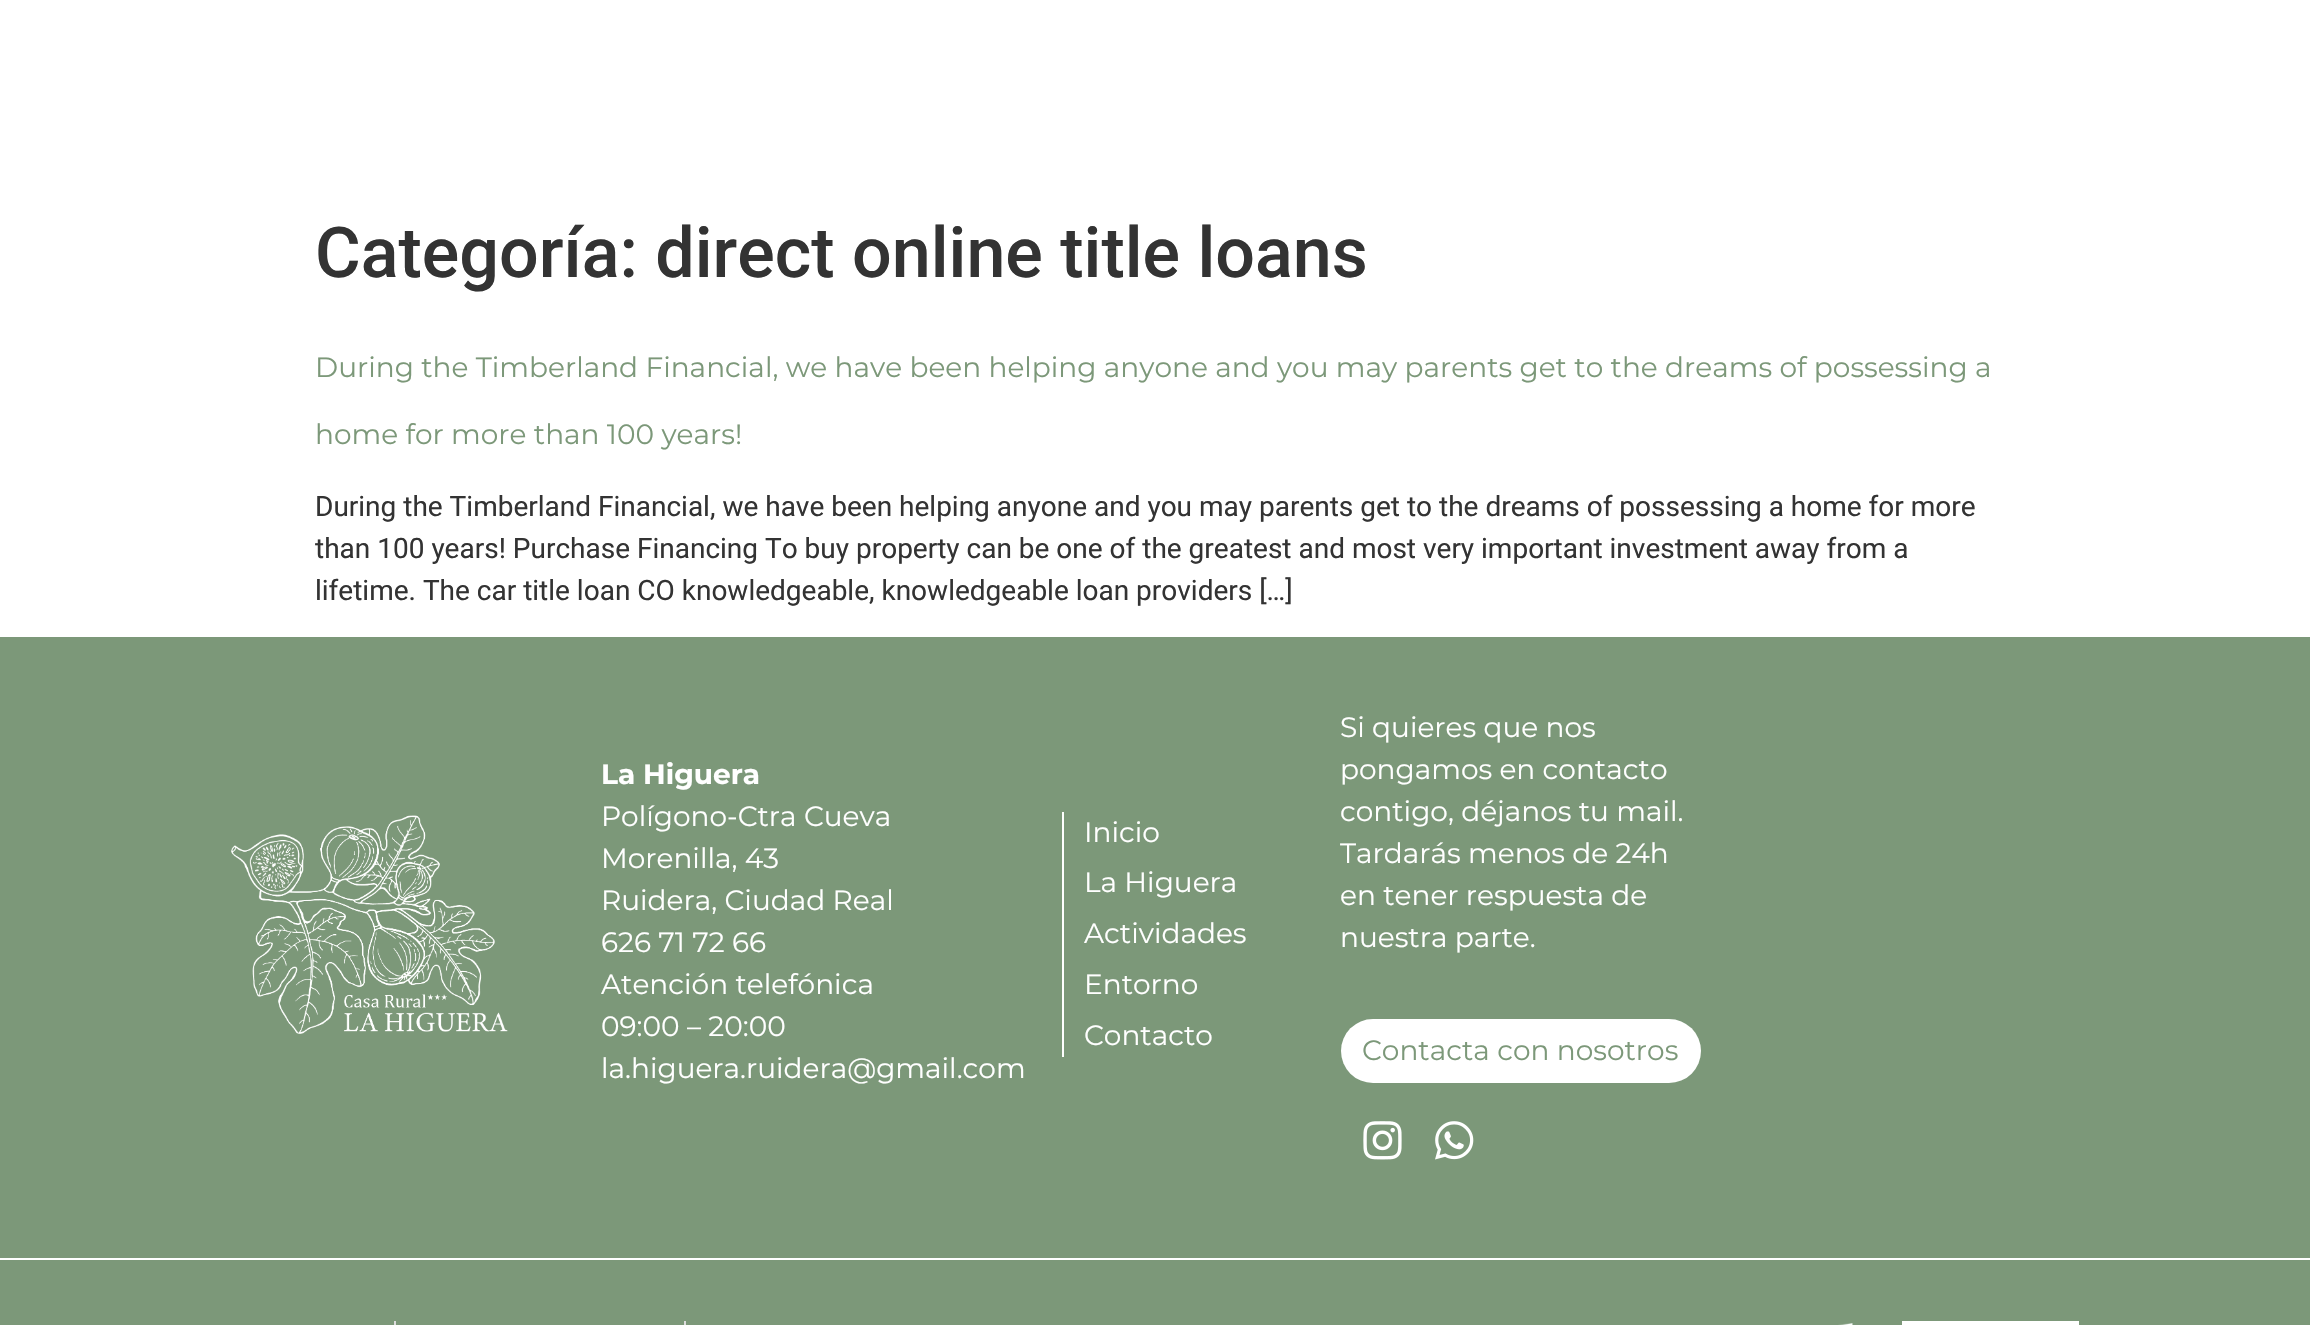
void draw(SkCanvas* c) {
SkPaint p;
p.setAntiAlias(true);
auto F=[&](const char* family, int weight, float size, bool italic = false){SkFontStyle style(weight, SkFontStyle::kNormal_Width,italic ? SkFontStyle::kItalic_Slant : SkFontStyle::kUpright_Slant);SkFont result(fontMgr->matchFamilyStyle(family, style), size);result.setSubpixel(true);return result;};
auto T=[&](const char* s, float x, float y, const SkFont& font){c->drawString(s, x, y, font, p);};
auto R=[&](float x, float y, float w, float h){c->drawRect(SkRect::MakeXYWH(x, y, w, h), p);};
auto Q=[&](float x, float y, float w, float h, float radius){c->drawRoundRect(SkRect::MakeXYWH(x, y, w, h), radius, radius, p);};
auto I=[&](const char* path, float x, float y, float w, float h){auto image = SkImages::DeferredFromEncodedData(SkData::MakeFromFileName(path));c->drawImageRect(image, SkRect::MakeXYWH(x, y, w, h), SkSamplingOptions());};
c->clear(0xffffffff);
auto f1 = F("Roboto",500,70);
p.setColor(0xff333333);
T("Categoría: direct online title loans",315,277,f1);
auto f2 = F("Montserrat",400,28);
p.setColor(0xff7c9879);
T("During the Timberland Financial, we have been helping anyone and you may parents get to the dreams of possessing a",315,377,f2);
T("home for more than 100 years!",315,444,f2);
auto f3 = F("Roboto",400,28);
p.setColor(0xff333333);
T("During the Timberland Financial, we have been helping anyone and you may parents get to the dreams of possessing a home for more",315,516,f3);
T("than 100 years! Purchase Financing To buy property can be one of the greatest and most very important investment away from a",315,558,f3);
T("lifetime. The car title loan CO knowledgeable, knowledgeable loan providers […]",315,600,f3);
p.setColor(0xff7c9879);
R(0,637,2310,688);
I("1.png",231,815,277,219);
auto f4 = F("Montserrat",700,28);
p.setColor(0xffffffff);
T("La Higuera",601,784,f4);
T("Polígono-Ctra Cueva",601,826,f2);
T("Morenilla, 43",601,868,f2);
T("Ruidera, Ciudad Real",601,910,f2);
T("626 71 72 66",601,952,f2);
T("Atención telefónica",601,994,f2);
T("09:00 – 20:00",601,1036,f2);
T("la.higuera.ruidera@gmail.com",601,1078,f2);
R(1062,812,2,245);
T("Inicio",1084,842,f2);
T("La Higuera",1084,892,f2);
T("Actividades",1084,943,f2);
T("Entorno",1084,994,f2);
T("Contacto",1084,1045,f2);
T("Si quieres que nos",1340,737,f2);
T("pongamos en contacto",1340,779,f2);
T("contigo, déjanos tu mail.",1340,821,f2);
T("Tardarás menos de 24h",1340,863,f2);
T("en tener respuesta de",1340,905,f2);
T("nuestra parte.",1340,947,f2);
Q(1341,1019,360,64,32);
p.setColor(0xff7c9879);
T("Contacta con nosotros",1362,1060,f2);
I("2.png",1363,1121,39,39);
I("3.png",1435,1121,39,39);
p.setColor(0xffffffff);
R(0,1258,2310,2);
p.setColor(0xffdddddd);
R(394,1321,2,4);
R(684,1321,2,4);
I("4.png",1838,1323,15,2);
p.setColor(0xffffffff);
R(1902,1321,177,4);
}
